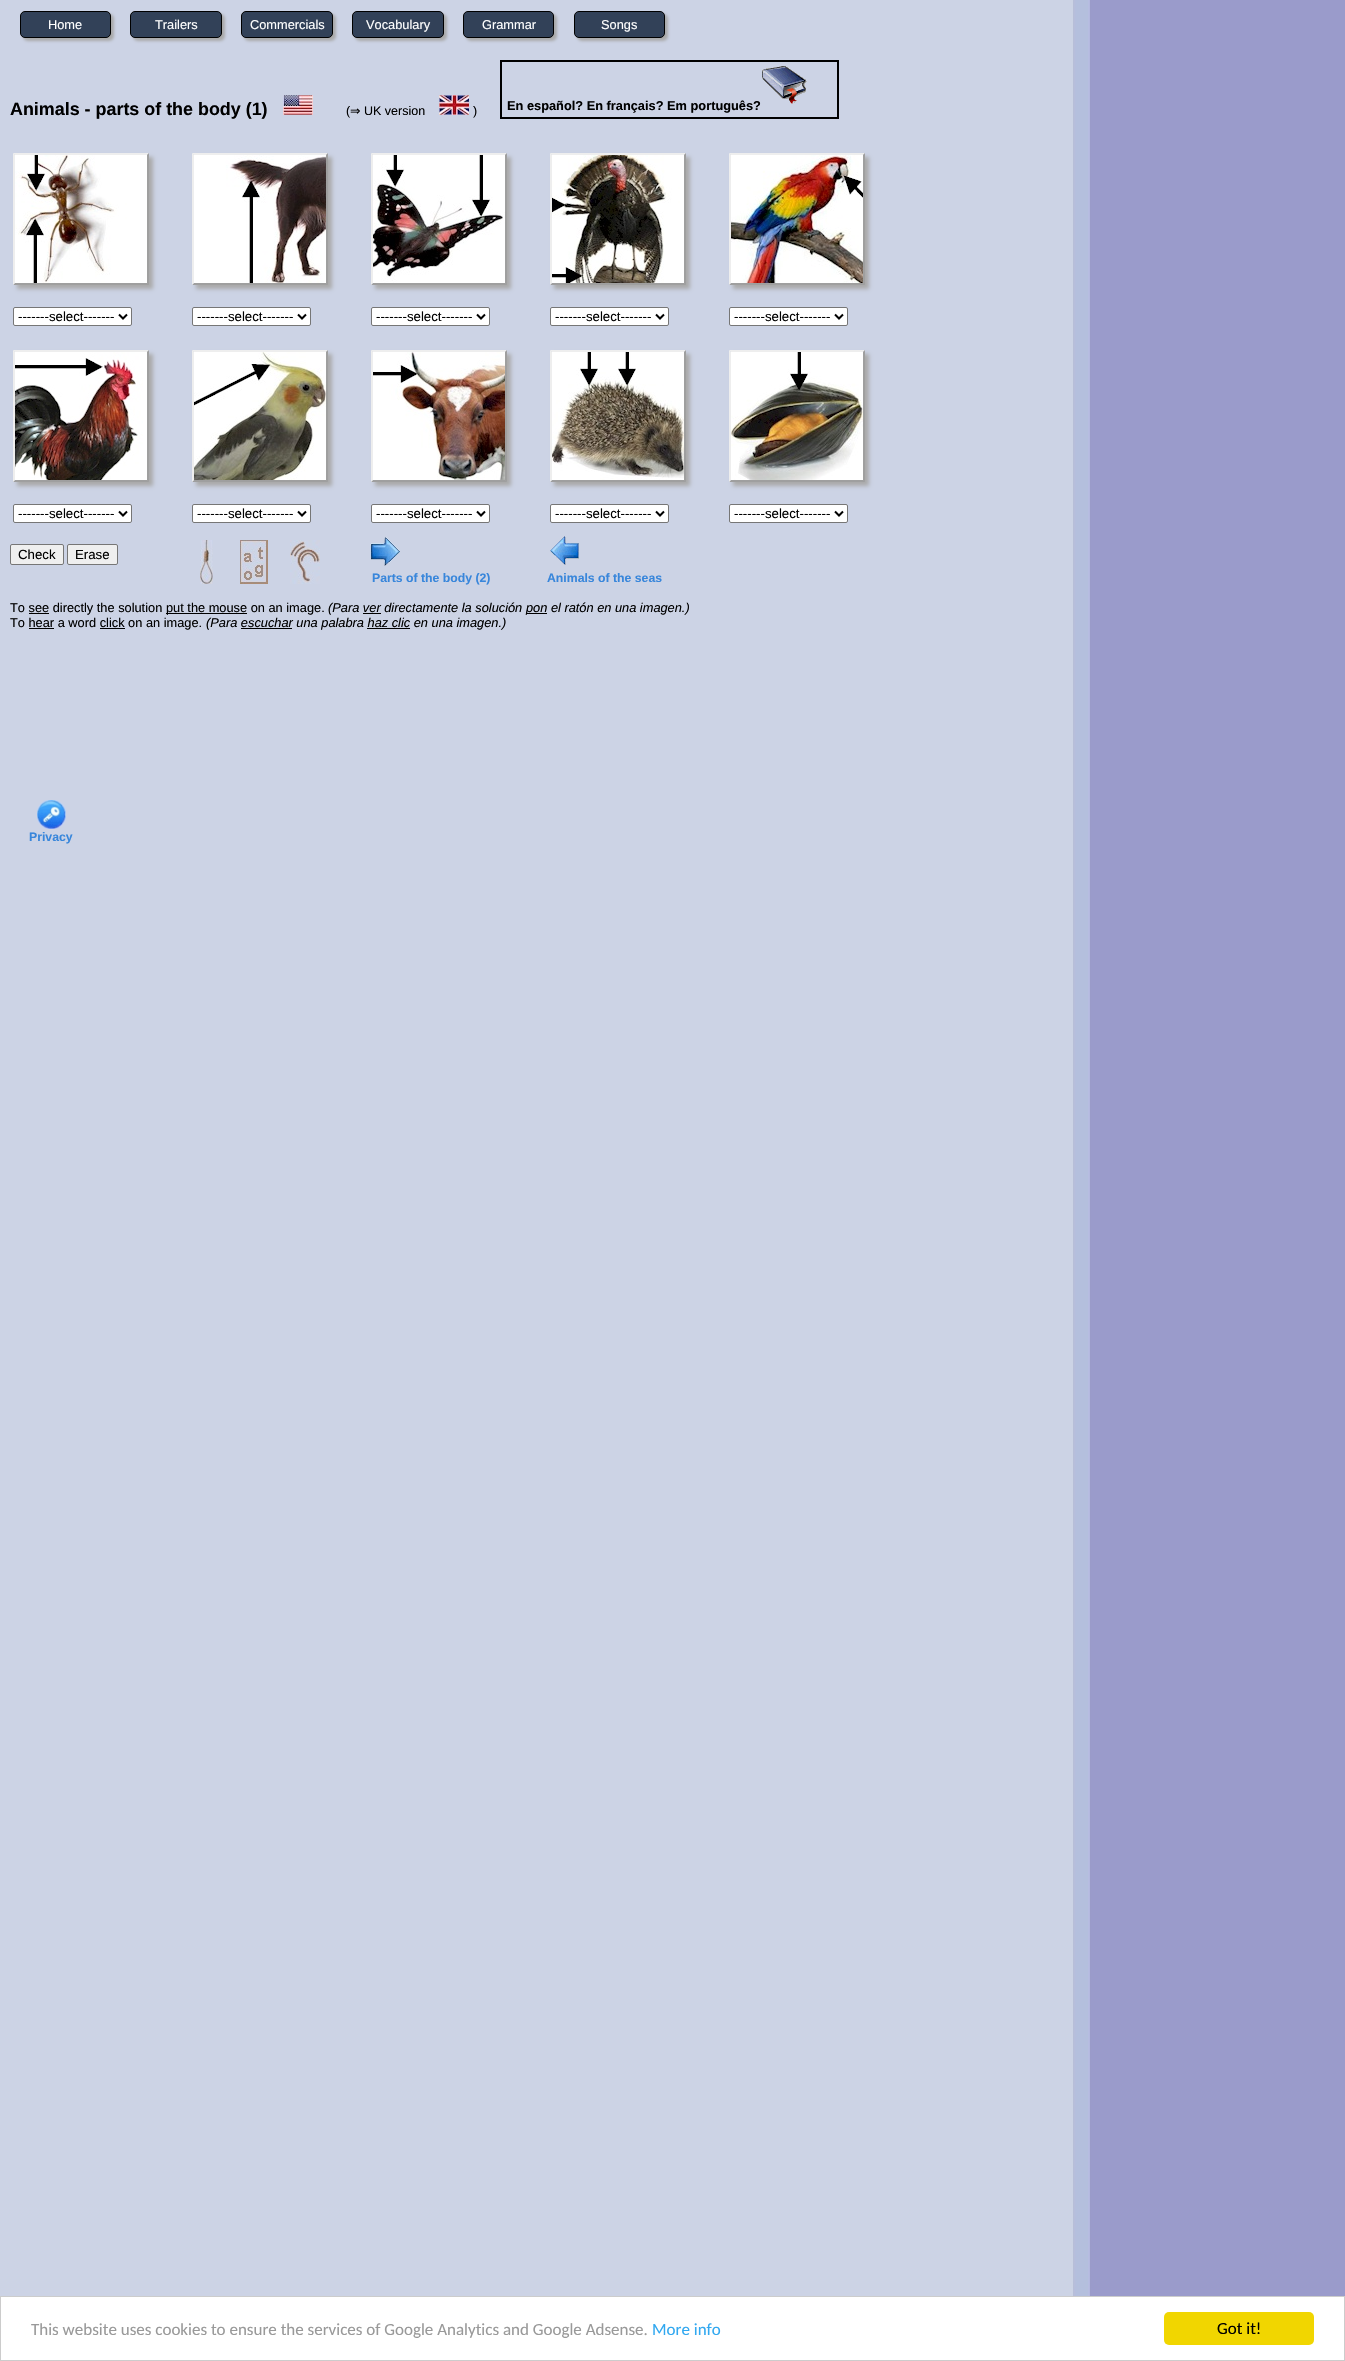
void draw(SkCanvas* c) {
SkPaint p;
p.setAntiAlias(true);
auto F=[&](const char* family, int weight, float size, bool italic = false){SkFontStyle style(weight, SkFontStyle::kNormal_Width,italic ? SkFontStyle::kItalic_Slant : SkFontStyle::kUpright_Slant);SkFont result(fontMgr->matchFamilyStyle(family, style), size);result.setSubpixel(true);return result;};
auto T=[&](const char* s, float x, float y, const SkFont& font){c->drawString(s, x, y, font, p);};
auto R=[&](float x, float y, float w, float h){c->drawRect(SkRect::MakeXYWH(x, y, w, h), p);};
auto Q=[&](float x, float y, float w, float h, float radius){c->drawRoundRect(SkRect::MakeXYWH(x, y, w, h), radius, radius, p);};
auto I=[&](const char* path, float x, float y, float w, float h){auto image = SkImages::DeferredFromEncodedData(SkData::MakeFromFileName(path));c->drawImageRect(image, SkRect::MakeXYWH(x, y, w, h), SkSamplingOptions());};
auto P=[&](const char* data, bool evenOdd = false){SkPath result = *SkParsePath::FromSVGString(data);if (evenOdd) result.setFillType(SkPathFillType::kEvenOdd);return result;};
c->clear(0xffccd3e5);
I("1.png",1073,0,272,2296);
p.setColor(0xffaaaaaa);
p.setMaskFilter(SkMaskFilter::MakeBlur(kNormal_SkBlurStyle, 1.5));
c->drawRoundRect(SkRect::MakeXYWH(23,14,91,27),5,5,p);
p.setMaskFilter(nullptr);
p.setColor(0xff324158);
c->drawRoundRect(SkRect::MakeXYWH(20.5,11.5,90,26),4.5,4.5,p);
p.setStroke(true);
p.setStrokeWidth(1);
p.setColor(0xff000000);
c->drawRoundRect(SkRect::MakeXYWH(20.5,11.5,90,26),4.5,4.5,p);
auto f1 = F("Liberation Sans",400,12.8);
p.setStroke(false);
p.setColor(0xffffffff);
T("Home",48,29,f1);
p.setColor(0xffaaaaaa);
p.setMaskFilter(SkMaskFilter::MakeBlur(kNormal_SkBlurStyle, 1.5));
c->drawRoundRect(SkRect::MakeXYWH(133,14,92,27),5,5,p);
p.setMaskFilter(nullptr);
p.setColor(0xff324158);
c->drawRoundRect(SkRect::MakeXYWH(130.5,11.5,91,26),4.5,4.5,p);
p.setStroke(true);
p.setColor(0xff000000);
c->drawRoundRect(SkRect::MakeXYWH(130.5,11.5,91,26),4.5,4.5,p);
p.setStroke(false);
p.setColor(0xffffffff);
T("Trailers",155,29,f1);
p.setColor(0xffaaaaaa);
p.setMaskFilter(SkMaskFilter::MakeBlur(kNormal_SkBlurStyle, 1.5));
c->drawRoundRect(SkRect::MakeXYWH(244,14,92,27),5,5,p);
p.setMaskFilter(nullptr);
p.setColor(0xff324158);
c->drawRoundRect(SkRect::MakeXYWH(241.5,11.5,91,26),4.5,4.5,p);
p.setStroke(true);
p.setColor(0xff000000);
c->drawRoundRect(SkRect::MakeXYWH(241.5,11.5,91,26),4.5,4.5,p);
p.setStroke(false);
p.setColor(0xffffffff);
T("Commercials",250,29,f1);
p.setColor(0xffaaaaaa);
p.setMaskFilter(SkMaskFilter::MakeBlur(kNormal_SkBlurStyle, 1.5));
c->drawRoundRect(SkRect::MakeXYWH(355,14,92,27),5,5,p);
p.setMaskFilter(nullptr);
p.setColor(0xff324158);
c->drawRoundRect(SkRect::MakeXYWH(352.5,11.5,91,26),4.5,4.5,p);
p.setStroke(true);
p.setColor(0xff000000);
c->drawRoundRect(SkRect::MakeXYWH(352.5,11.5,91,26),4.5,4.5,p);
p.setStroke(false);
p.setColor(0xffffffff);
T("Vocabulary",366,29,f1);
p.setColor(0xffaaaaaa);
p.setMaskFilter(SkMaskFilter::MakeBlur(kNormal_SkBlurStyle, 1.5));
c->drawRoundRect(SkRect::MakeXYWH(466,14,91,27),5,5,p);
p.setMaskFilter(nullptr);
p.setColor(0xff324158);
c->drawRoundRect(SkRect::MakeXYWH(463.5,11.5,90,26),4.5,4.5,p);
p.setStroke(true);
p.setColor(0xff000000);
c->drawRoundRect(SkRect::MakeXYWH(463.5,11.5,90,26),4.5,4.5,p);
p.setStroke(false);
p.setColor(0xffffffff);
T("Grammar",482,29,f1);
p.setColor(0xffaaaaaa);
p.setMaskFilter(SkMaskFilter::MakeBlur(kNormal_SkBlurStyle, 1.5));
c->drawRoundRect(SkRect::MakeXYWH(577,14,91,27),5,5,p);
p.setMaskFilter(nullptr);
p.setColor(0xff324158);
c->drawRoundRect(SkRect::MakeXYWH(574.5,11.5,90,26),4.5,4.5,p);
p.setStroke(true);
p.setColor(0xff000000);
c->drawRoundRect(SkRect::MakeXYWH(574.5,11.5,90,26),4.5,4.5,p);
p.setStroke(false);
p.setColor(0xffffffff);
T("Songs",601,29,f1);
auto f2 = F("Liberation Sans",700,17.9);
p.setColor(0xff000000);
T("Animals - parts of the body (1)",10,115,f2);
I("2.png",283,95,30,20);
auto f3 = F("Liberation Sans",400,12.5);
T("(",346,115,f3);
auto f4 = F("DejaVu Sans",400,12.5);
T("⇒",350,115,f4);
T("UK version",364,115,f3);
I("3.png",439,95,30,20);
T(")",473,115,f3);
p.setStroke(true);
p.setStrokeWidth(2);
c->drawRect(SkRect::MakeXYWH(501,61,337,57),p);
I("4.png",762,66,45,38);
auto f5 = F("Liberation Sans",700,12.8);
p.setStroke(false);
T("En español? En français? Em português?",507,110,f5);
p.setColor(0xffaaaaaa);
p.setMaskFilter(SkMaskFilter::MakeBlur(kNormal_SkBlurStyle, 2));
c->drawRect(SkRect::MakeXYWH(17,157,136,132),p);
p.setMaskFilter(nullptr);
p.setColor(0xffeeeeee);
c->drawPath(P("M13 153h136l-2 2h-132z"),p);
p.setColor(0xff9f9f9f);
c->drawPath(P("M149 153v132l-2-2v-128z"),p);
c->drawPath(P("M149 285h-136l2-2h132z"),p);
p.setColor(0xffeeeeee);
c->drawPath(P("M13 285v-132l2 2v128z"),p);
I("5.png",15,155,132,128);
p.setColor(0xffffffff);
c->drawRoundRect(SkRect::MakeXYWH(13.5,307.5,118,18),1.5,1.5,p);
p.setStroke(true);
p.setStrokeWidth(1);
p.setColor(0xff767676);
c->drawRoundRect(SkRect::MakeXYWH(13.5,307.5,118,18),1.5,1.5,p);
p.setStrokeWidth(2);
p.setColor(0xff000000);
c->drawPath(P("M119 314.5l4 4l4-4"),p);
auto f6 = F("Liberation Sans",400,13.25);
p.setStroke(false);
T("-------select-------",18,321,f6);
p.setColor(0xffaaaaaa);
p.setMaskFilter(SkMaskFilter::MakeBlur(kNormal_SkBlurStyle, 2));
c->drawRect(SkRect::MakeXYWH(196,157,136,132),p);
p.setMaskFilter(nullptr);
p.setColor(0xffeeeeee);
c->drawPath(P("M192 153h136l-2 2h-132z"),p);
p.setColor(0xff9f9f9f);
c->drawPath(P("M328 153v132l-2-2v-128z"),p);
c->drawPath(P("M328 285h-136l2-2h132z"),p);
p.setColor(0xffeeeeee);
c->drawPath(P("M192 285v-132l2 2v128z"),p);
I("6.png",194,155,132,128);
p.setColor(0xffffffff);
c->drawRoundRect(SkRect::MakeXYWH(192.5,307.5,118,18),1.5,1.5,p);
p.setStroke(true);
p.setStrokeWidth(1);
p.setColor(0xff767676);
c->drawRoundRect(SkRect::MakeXYWH(192.5,307.5,118,18),1.5,1.5,p);
p.setStrokeWidth(2);
p.setColor(0xff000000);
c->drawPath(P("M298 314.5l4 4l4-4"),p);
p.setStroke(false);
T("-------select-------",197,321,f6);
p.setColor(0xffaaaaaa);
p.setMaskFilter(SkMaskFilter::MakeBlur(kNormal_SkBlurStyle, 2));
c->drawRect(SkRect::MakeXYWH(375,157,136,132),p);
p.setMaskFilter(nullptr);
p.setColor(0xffeeeeee);
c->drawPath(P("M371 153h136l-2 2h-132z"),p);
p.setColor(0xff9f9f9f);
c->drawPath(P("M507 153v132l-2-2v-128z"),p);
c->drawPath(P("M507 285h-136l2-2h132z"),p);
p.setColor(0xffeeeeee);
c->drawPath(P("M371 285v-132l2 2v128z"),p);
I("7.png",373,155,132,128);
p.setColor(0xffffffff);
c->drawRoundRect(SkRect::MakeXYWH(371.5,307.5,118,18),1.5,1.5,p);
p.setStroke(true);
p.setStrokeWidth(1);
p.setColor(0xff767676);
c->drawRoundRect(SkRect::MakeXYWH(371.5,307.5,118,18),1.5,1.5,p);
p.setStrokeWidth(2);
p.setColor(0xff000000);
c->drawPath(P("M477 314.5l4 4l4-4"),p);
p.setStroke(false);
T("-------select-------",376,321,f6);
p.setColor(0xffaaaaaa);
p.setMaskFilter(SkMaskFilter::MakeBlur(kNormal_SkBlurStyle, 2));
c->drawRect(SkRect::MakeXYWH(554,157,136,132),p);
p.setMaskFilter(nullptr);
p.setColor(0xffeeeeee);
c->drawPath(P("M550 153h136l-2 2h-132z"),p);
p.setColor(0xff9f9f9f);
c->drawPath(P("M686 153v132l-2-2v-128z"),p);
c->drawPath(P("M686 285h-136l2-2h132z"),p);
p.setColor(0xffeeeeee);
c->drawPath(P("M550 285v-132l2 2v128z"),p);
I("8.png",552,155,132,128);
p.setColor(0xffffffff);
c->drawRoundRect(SkRect::MakeXYWH(550.5,307.5,118,18),1.5,1.5,p);
p.setStroke(true);
p.setStrokeWidth(1);
p.setColor(0xff767676);
c->drawRoundRect(SkRect::MakeXYWH(550.5,307.5,118,18),1.5,1.5,p);
p.setStrokeWidth(2);
p.setColor(0xff000000);
c->drawPath(P("M656 314.5l4 4l4-4"),p);
p.setStroke(false);
T("-------select-------",555,321,f6);
p.setColor(0xffaaaaaa);
p.setMaskFilter(SkMaskFilter::MakeBlur(kNormal_SkBlurStyle, 2));
c->drawRect(SkRect::MakeXYWH(733,157,136,132),p);
p.setMaskFilter(nullptr);
p.setColor(0xffeeeeee);
c->drawPath(P("M729 153h136l-2 2h-132z"),p);
p.setColor(0xff9f9f9f);
c->drawPath(P("M865 153v132l-2-2v-128z"),p);
c->drawPath(P("M865 285h-136l2-2h132z"),p);
p.setColor(0xffeeeeee);
c->drawPath(P("M729 285v-132l2 2v128z"),p);
I("9.png",731,155,132,128);
p.setColor(0xffffffff);
c->drawRoundRect(SkRect::MakeXYWH(729.5,307.5,118,18),1.5,1.5,p);
p.setStroke(true);
p.setStrokeWidth(1);
p.setColor(0xff767676);
c->drawRoundRect(SkRect::MakeXYWH(729.5,307.5,118,18),1.5,1.5,p);
p.setStrokeWidth(2);
p.setColor(0xff000000);
c->drawPath(P("M835 314.5l4 4l4-4"),p);
p.setStroke(false);
T("-------select-------",734,321,f6);
p.setColor(0xffaaaaaa);
p.setMaskFilter(SkMaskFilter::MakeBlur(kNormal_SkBlurStyle, 2));
c->drawRect(SkRect::MakeXYWH(17,354,136,132),p);
p.setMaskFilter(nullptr);
p.setColor(0xffeeeeee);
c->drawPath(P("M13 350h136l-2 2h-132z"),p);
p.setColor(0xff9f9f9f);
c->drawPath(P("M149 350v132l-2-2v-128z"),p);
c->drawPath(P("M149 482h-136l2-2h132z"),p);
p.setColor(0xffeeeeee);
c->drawPath(P("M13 482v-132l2 2v128z"),p);
I("10.png",15,352,132,128);
p.setColor(0xffffffff);
c->drawRoundRect(SkRect::MakeXYWH(13.5,504.5,118,18),1.5,1.5,p);
p.setStroke(true);
p.setStrokeWidth(1);
p.setColor(0xff767676);
c->drawRoundRect(SkRect::MakeXYWH(13.5,504.5,118,18),1.5,1.5,p);
p.setStrokeWidth(2);
p.setColor(0xff000000);
c->drawPath(P("M119 511.5l4 4l4-4"),p);
p.setStroke(false);
T("-------select-------",18,518,f6);
p.setColor(0xffaaaaaa);
p.setMaskFilter(SkMaskFilter::MakeBlur(kNormal_SkBlurStyle, 2));
c->drawRect(SkRect::MakeXYWH(196,354,136,132),p);
p.setMaskFilter(nullptr);
p.setColor(0xffeeeeee);
c->drawPath(P("M192 350h136l-2 2h-132z"),p);
p.setColor(0xff9f9f9f);
c->drawPath(P("M328 350v132l-2-2v-128z"),p);
c->drawPath(P("M328 482h-136l2-2h132z"),p);
p.setColor(0xffeeeeee);
c->drawPath(P("M192 482v-132l2 2v128z"),p);
I("11.png",194,352,132,128);
p.setColor(0xffffffff);
c->drawRoundRect(SkRect::MakeXYWH(192.5,504.5,118,18),1.5,1.5,p);
p.setStroke(true);
p.setStrokeWidth(1);
p.setColor(0xff767676);
c->drawRoundRect(SkRect::MakeXYWH(192.5,504.5,118,18),1.5,1.5,p);
p.setStrokeWidth(2);
p.setColor(0xff000000);
c->drawPath(P("M298 511.5l4 4l4-4"),p);
p.setStroke(false);
T("-------select-------",197,518,f6);
p.setColor(0xffaaaaaa);
p.setMaskFilter(SkMaskFilter::MakeBlur(kNormal_SkBlurStyle, 2));
c->drawRect(SkRect::MakeXYWH(375,354,136,132),p);
p.setMaskFilter(nullptr);
p.setColor(0xffeeeeee);
c->drawPath(P("M371 350h136l-2 2h-132z"),p);
p.setColor(0xff9f9f9f);
c->drawPath(P("M507 350v132l-2-2v-128z"),p);
c->drawPath(P("M507 482h-136l2-2h132z"),p);
p.setColor(0xffeeeeee);
c->drawPath(P("M371 482v-132l2 2v128z"),p);
I("12.png",373,352,132,128);
p.setColor(0xffffffff);
c->drawRoundRect(SkRect::MakeXYWH(371.5,504.5,118,18),1.5,1.5,p);
p.setStroke(true);
p.setStrokeWidth(1);
p.setColor(0xff767676);
c->drawRoundRect(SkRect::MakeXYWH(371.5,504.5,118,18),1.5,1.5,p);
p.setStrokeWidth(2);
p.setColor(0xff000000);
c->drawPath(P("M477 511.5l4 4l4-4"),p);
p.setStroke(false);
T("-------select-------",376,518,f6);
p.setColor(0xffaaaaaa);
p.setMaskFilter(SkMaskFilter::MakeBlur(kNormal_SkBlurStyle, 2));
c->drawRect(SkRect::MakeXYWH(554,354,136,132),p);
p.setMaskFilter(nullptr);
p.setColor(0xffeeeeee);
c->drawPath(P("M550 350h136l-2 2h-132z"),p);
p.setColor(0xff9f9f9f);
c->drawPath(P("M686 350v132l-2-2v-128z"),p);
c->drawPath(P("M686 482h-136l2-2h132z"),p);
p.setColor(0xffeeeeee);
c->drawPath(P("M550 482v-132l2 2v128z"),p);
I("13.png",552,352,132,128);
p.setColor(0xffffffff);
c->drawRoundRect(SkRect::MakeXYWH(550.5,504.5,118,18),1.5,1.5,p);
p.setStroke(true);
p.setStrokeWidth(1);
p.setColor(0xff767676);
c->drawRoundRect(SkRect::MakeXYWH(550.5,504.5,118,18),1.5,1.5,p);
p.setStrokeWidth(2);
p.setColor(0xff000000);
c->drawPath(P("M656 511.5l4 4l4-4"),p);
p.setStroke(false);
T("-------select-------",555,518,f6);
p.setColor(0xffaaaaaa);
p.setMaskFilter(SkMaskFilter::MakeBlur(kNormal_SkBlurStyle, 2));
c->drawRect(SkRect::MakeXYWH(733,354,136,132),p);
p.setMaskFilter(nullptr);
p.setColor(0xffeeeeee);
c->drawPath(P("M729 350h136l-2 2h-132z"),p);
p.setColor(0xff9f9f9f);
c->drawPath(P("M865 350v132l-2-2v-128z"),p);
c->drawPath(P("M865 482h-136l2-2h132z"),p);
p.setColor(0xffeeeeee);
c->drawPath(P("M729 482v-132l2 2v128z"),p);
I("14.png",731,352,132,128);
p.setColor(0xffffffff);
c->drawRoundRect(SkRect::MakeXYWH(729.5,504.5,118,18),1.5,1.5,p);
p.setStroke(true);
p.setStrokeWidth(1);
p.setColor(0xff767676);
c->drawRoundRect(SkRect::MakeXYWH(729.5,504.5,118,18),1.5,1.5,p);
p.setStrokeWidth(2);
p.setColor(0xff000000);
c->drawPath(P("M835 511.5l4 4l4-4"),p);
p.setStroke(false);
T("-------select-------",734,518,f6);
p.setColor(0xffefefef);
c->drawRoundRect(SkRect::MakeXYWH(10.5,544.5,53,20),1.5,1.5,p);
p.setStroke(true);
p.setStrokeWidth(1);
p.setColor(0xff767676);
c->drawRoundRect(SkRect::MakeXYWH(10.5,544.5,53,20),1.5,1.5,p);
p.setStroke(false);
p.setColor(0xff000000);
T("Check",18,559,f6);
p.setColor(0xffefefef);
c->drawRoundRect(SkRect::MakeXYWH(67.5,544.5,50,20),1.5,1.5,p);
p.setStroke(true);
p.setColor(0xff767676);
c->drawRoundRect(SkRect::MakeXYWH(67.5,544.5,50,20),1.5,1.5,p);
p.setStroke(false);
p.setColor(0xff000000);
T("Erase",75,559,f6);
I("15.png",370,537,30,29);
I("16.png",550,536,29,29);
auto f7 = F("Liberation Sans",700,12.25);
p.setColor(0xff3886db);
T("Parts of the body (2)",372,582,f7);
T("Animals of the seas",547,582,f7);
p.setColor(0xff000000);
T("To see directly the solution",10,612,f1);
R(166,613,81,1);
T("put the mouse on an image.",166,612,f1);
auto f8 = F("Liberation Sans",400,12.8,true);
T("(Para ver directamente la solución",328,612,f8);
R(363,613,18,1);
R(526,613,21,1);
T("pon el ratón en una imagen.)",526,612,f8);
R(29,613,20,1);
T("To hear a word click on an image.",10,627,f1);
T("(Para escuchar una palabra haz clic en una imagen.)",206,627,f8);
R(241,628,51,1);
R(367,628,43,1);
R(29,628,25,1);
R(100,628,25,1);
I("17.png",200,540,13,44);
I("18.png",240,540,28,44);
I("19.png",290,540,30,44);
I("20.png",37,800,29,29);
p.setColor(0xff3886db);
T("Privacy",29,841,f7);
p.setColor(0xffffffff);
c->drawRect(SkRect::MakeXYWH(.5,2296.5,1344,64),p);
p.setStroke(true);
p.setColor(0xffcccccc);
c->drawRect(SkRect::MakeXYWH(.5,2296.5,1344,64),p);
auto f9 = F("Carlito",400,17);
p.setStroke(false);
p.setColor(0xff999999);
T("This website uses cookies to ensure the services of Google Analytics and Google Adsense.",31,2335,f9);
p.setColor(0xff31a8f0);
T("More info",652,2335,f9);
p.setColor(0xfff1d600);
Q(1164,2312,150,33,5);
p.setColor(0xff000000);
T("Got it!",1217,2334,f9);
}
